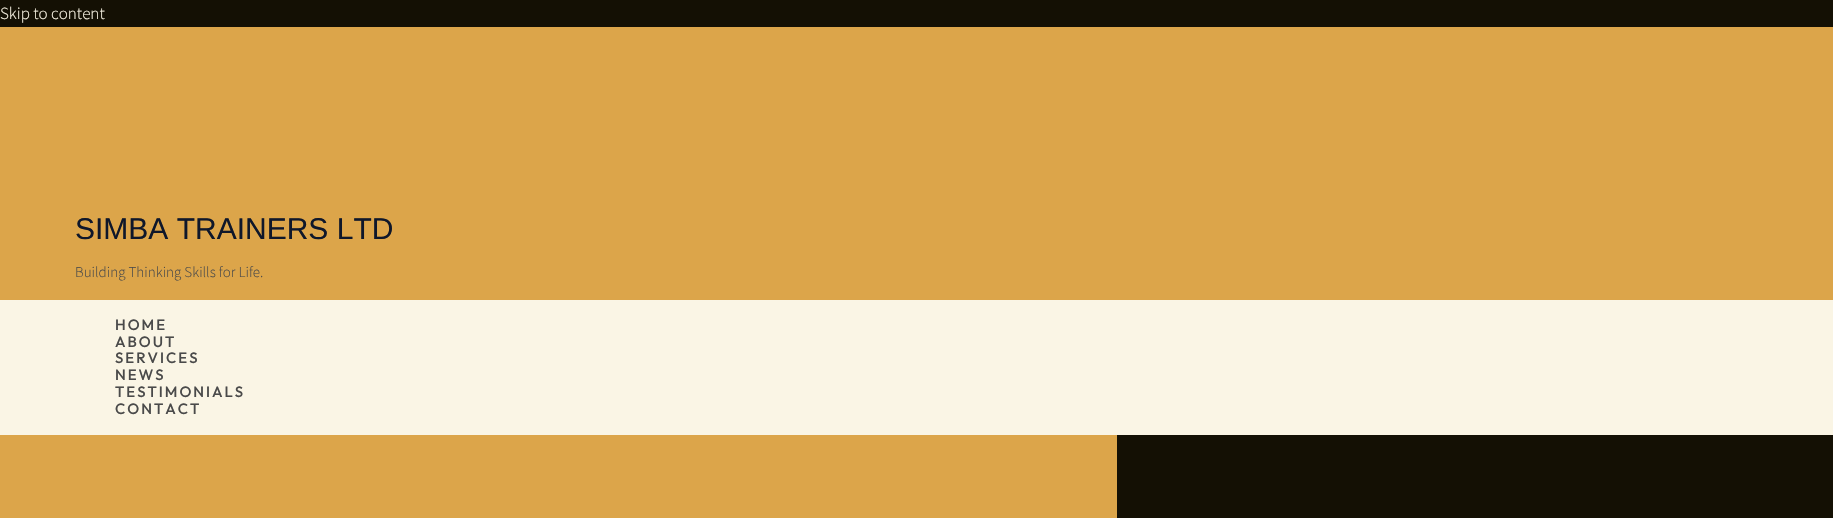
void draw(SkCanvas* c) {
SkPaint p;
p.setAntiAlias(true);
auto F=[&](const char* family, int weight, float size, bool italic = false){SkFontStyle style(weight, SkFontStyle::kNormal_Width,italic ? SkFontStyle::kItalic_Slant : SkFontStyle::kUpright_Slant);SkFont result(fontMgr->matchFamilyStyle(family, style), size);result.setSubpixel(true);return result;};
auto T=[&](const char* s, float x, float y, const SkFont& font){c->drawString(s, x, y, font, p);};
auto L=[&](const char* s, float x, float y, const SkFont& font, const SkPaint& ink, float letter, float word){std::vector<SkGlyphID> glyphs(font.countText(s, strlen(s), SkTextEncoding::kUTF8));std::vector<float> xs(glyphs.size());font.textToGlyphs(s, strlen(s), SkTextEncoding::kUTF8, glyphs);font.getXPos(glyphs, xs, x);float extra = 0;for (size_t i = 0; i < glyphs.size(); i++) {xs[i] += extra;extra += letter + word * (glyphs[i] == font.unicharToGlyph(' '));}c->drawTextBlob(SkTextBlob::MakeFromPosHGlyphs(glyphs, xs, y, font), 0, 0, ink);};
auto R=[&](float x, float y, float w, float h){c->drawRect(SkRect::MakeXYWH(x, y, w, h), p);};
c->clear(0xff141004);
auto f1 = F("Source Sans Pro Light",300,17);
p.setColor(0xfffaf5e5);
T("Skip to content",0,19,f1);
p.setColor(0xffdca54a);
R(0,27,1833,273);
auto f2 = F("Liberation Sans",400,30);
p.setColor(0xff0f172a);
T("SIMBA TRAINERS LTD",75,239,f2);
auto f3 = F("Source Sans Pro Light",300,15);
p.setColor(0xff4a4a4a);
T("Building Thinking Skills for Life.",75,277,f3);
p.setColor(0xfffaf5e5);
R(0,300,1833,135);
auto f4 = F("Outfit",500,15);
p.setColor(0xff4a4a4a);
L("HOME",115,330,f4,p,2,0);
L("ABOUT",115,347,f4,p,2,0);
L("SERVICES",115,363,f4,p,2,0);
L("NEWS",115,380,f4,p,2,0);
L("TESTIMONIALS",115,397,f4,p,2,0);
L("CONTACT",115,414,f4,p,2,0);
p.setColor(0xffdca54a);
R(0,435,1117,83);
}
